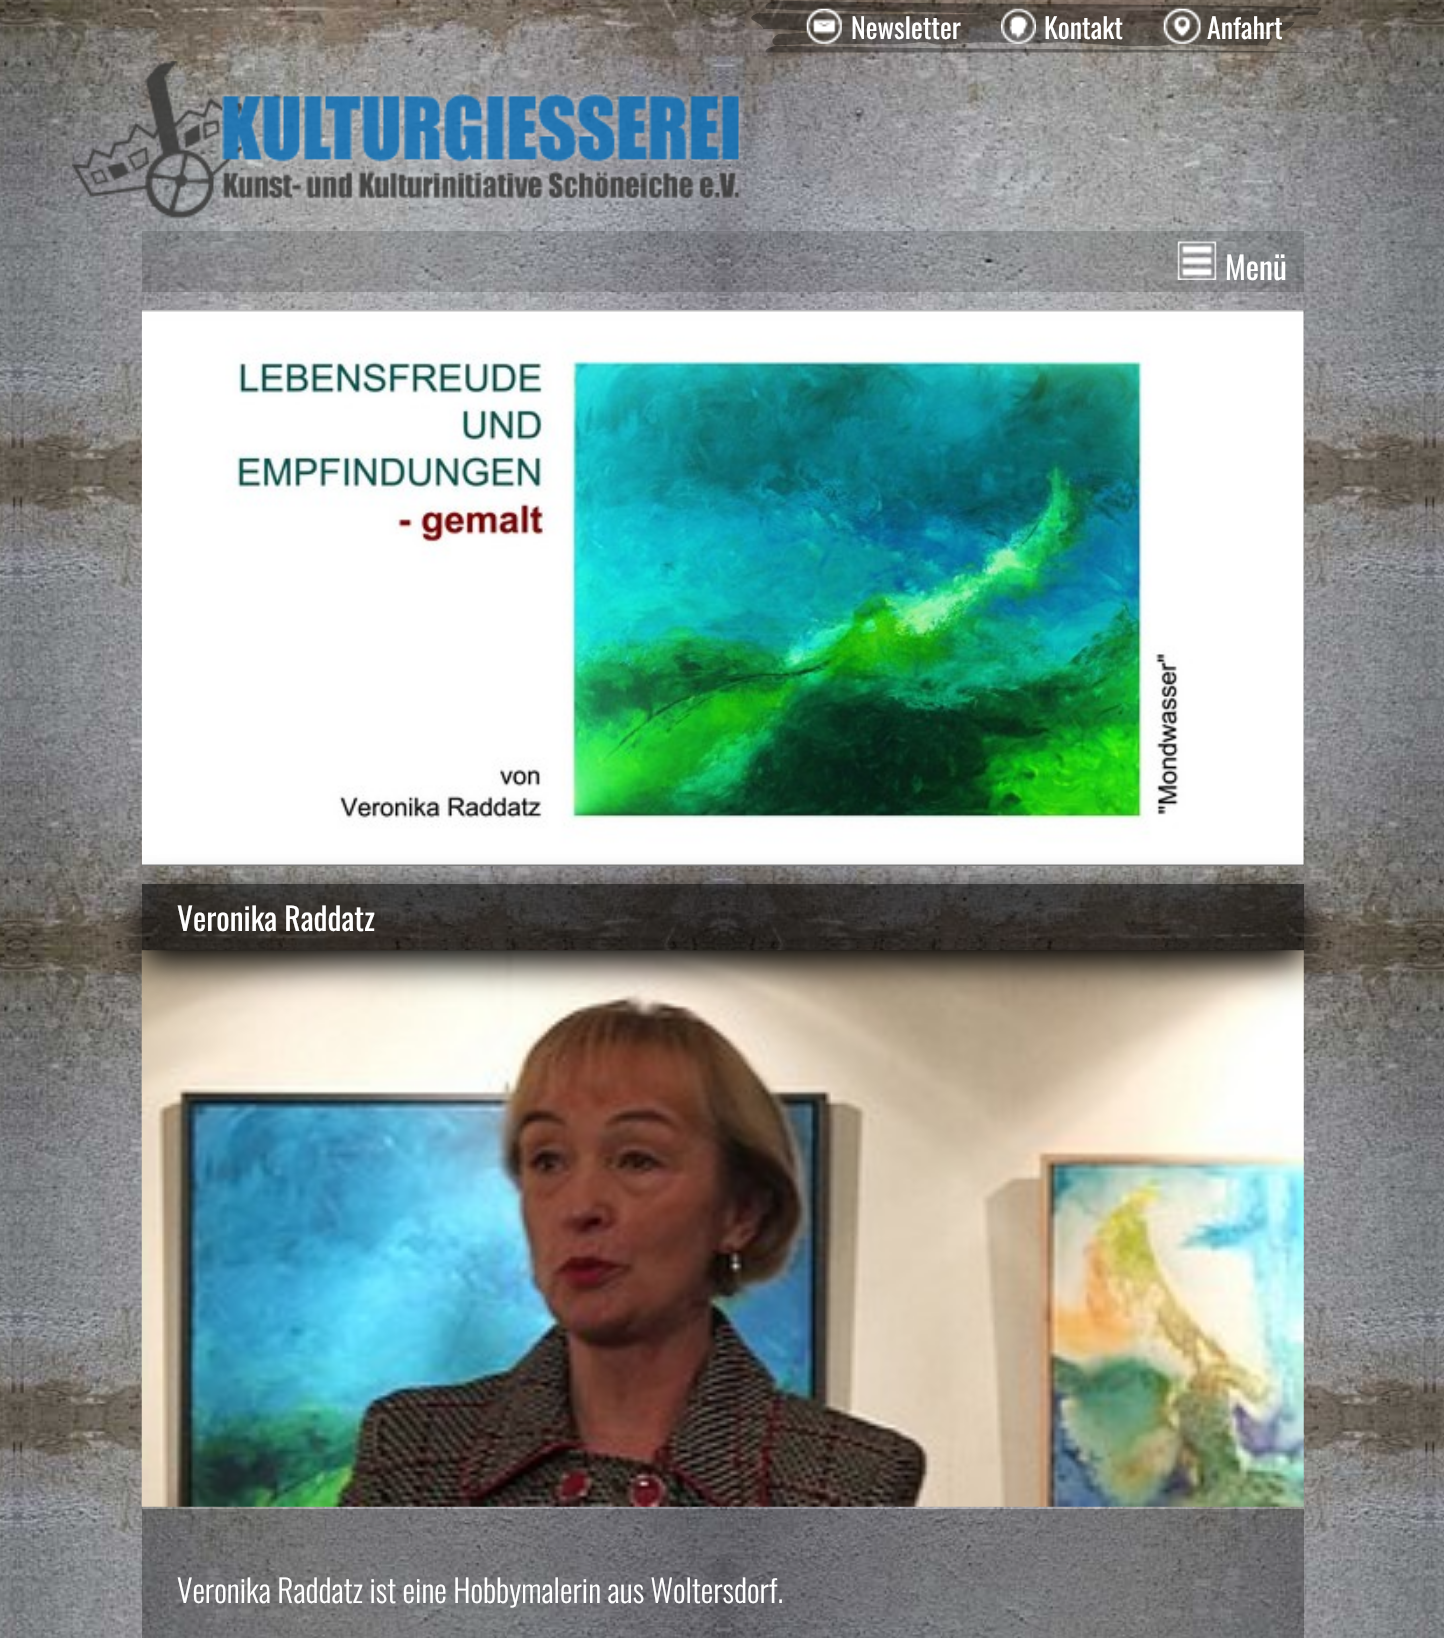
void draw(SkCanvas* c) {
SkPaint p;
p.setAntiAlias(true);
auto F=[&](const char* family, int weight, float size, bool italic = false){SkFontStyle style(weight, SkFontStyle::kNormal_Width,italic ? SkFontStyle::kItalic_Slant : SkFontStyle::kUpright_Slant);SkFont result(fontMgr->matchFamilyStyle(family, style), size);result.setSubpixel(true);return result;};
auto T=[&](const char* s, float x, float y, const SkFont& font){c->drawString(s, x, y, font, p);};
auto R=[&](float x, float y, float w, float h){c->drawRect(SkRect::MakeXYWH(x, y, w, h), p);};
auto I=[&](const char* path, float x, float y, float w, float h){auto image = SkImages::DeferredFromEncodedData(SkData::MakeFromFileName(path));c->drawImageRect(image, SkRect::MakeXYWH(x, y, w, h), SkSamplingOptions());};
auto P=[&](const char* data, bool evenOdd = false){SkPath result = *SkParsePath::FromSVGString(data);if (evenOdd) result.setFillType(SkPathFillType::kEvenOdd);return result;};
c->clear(0xffffffff);
I("1.png",0,0,1444,1638);
I("2.png",750,0,572,53);
I("3.png",806,8,36,36);
auto f1 = F("Oswald",400,28);
p.setColor(0xffffffff);
T("Newsletter",851,39,f1);
I("4.png",1001,8,35,36);
T("Kontakt",1044,39,f1);
I("5.png",1163,8,38,36);
T("Anfahrt",1207,39,f1);
I("6.png",71,61,673,158);
p.setColor(0x26000000);
R(142,231,1162,61);
I("7.png",1177,241,40,39);
auto f2 = F("Oswald",400,31.5);
p.setColor(0xffffffff);
T("Menü",1225,280,f2);
I("9.png",141,310,1163,556);
p.setColor(0x4d000000);
R(1303,310,1,556);
I("8.png",141,309,1163,557);
I("10.png",141,950,1163,557);
c->save();
c->clipPath(P("M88 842h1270v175h-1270zm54 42h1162v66h-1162z",true),true);
p.setColor(0xff000000);
p.setMaskFilter(SkMaskFilter::MakeBlur(kNormal_SkBlurStyle, 17.5));
c->drawRect(SkRect::MakeXYWH(142,896,1162,67),p);
p.setMaskFilter(nullptr);
c->restore();
p.setColor(0x99000000);
R(142,884,1162,66);
p.setColor(0xffffffff);
T("Veronika Raddatz",177,931,f2);
p.setColor(0x4d000000);
R(142,1509,1162,129);
auto f3 = F("Oswald",300,31.5);
p.setColor(0xffffffff);
T("Veronika Raddatz ist eine Hobbymalerin aus Woltersdorf.",177,1603,f3);
}
